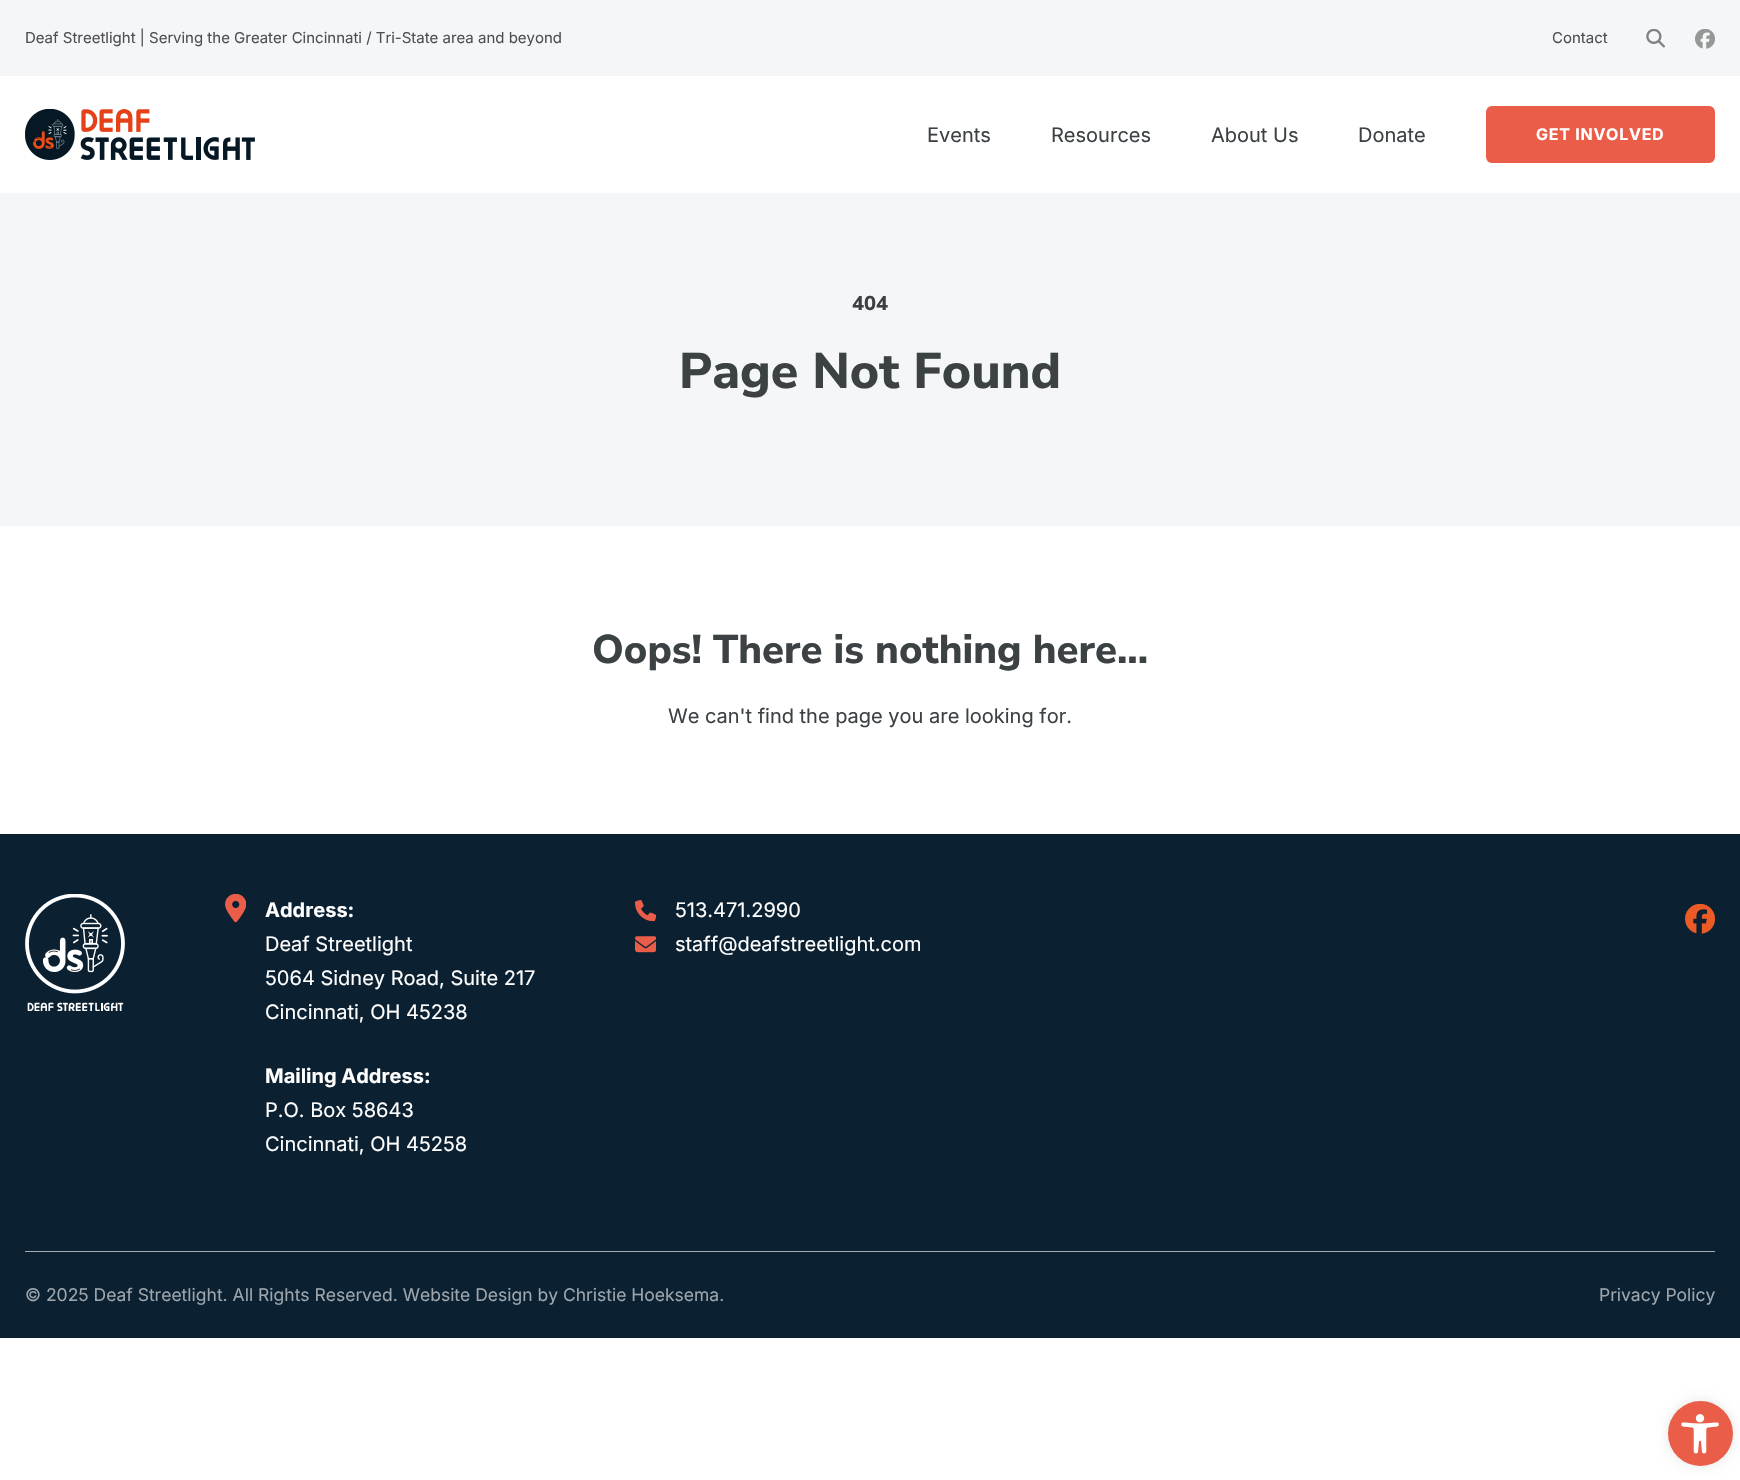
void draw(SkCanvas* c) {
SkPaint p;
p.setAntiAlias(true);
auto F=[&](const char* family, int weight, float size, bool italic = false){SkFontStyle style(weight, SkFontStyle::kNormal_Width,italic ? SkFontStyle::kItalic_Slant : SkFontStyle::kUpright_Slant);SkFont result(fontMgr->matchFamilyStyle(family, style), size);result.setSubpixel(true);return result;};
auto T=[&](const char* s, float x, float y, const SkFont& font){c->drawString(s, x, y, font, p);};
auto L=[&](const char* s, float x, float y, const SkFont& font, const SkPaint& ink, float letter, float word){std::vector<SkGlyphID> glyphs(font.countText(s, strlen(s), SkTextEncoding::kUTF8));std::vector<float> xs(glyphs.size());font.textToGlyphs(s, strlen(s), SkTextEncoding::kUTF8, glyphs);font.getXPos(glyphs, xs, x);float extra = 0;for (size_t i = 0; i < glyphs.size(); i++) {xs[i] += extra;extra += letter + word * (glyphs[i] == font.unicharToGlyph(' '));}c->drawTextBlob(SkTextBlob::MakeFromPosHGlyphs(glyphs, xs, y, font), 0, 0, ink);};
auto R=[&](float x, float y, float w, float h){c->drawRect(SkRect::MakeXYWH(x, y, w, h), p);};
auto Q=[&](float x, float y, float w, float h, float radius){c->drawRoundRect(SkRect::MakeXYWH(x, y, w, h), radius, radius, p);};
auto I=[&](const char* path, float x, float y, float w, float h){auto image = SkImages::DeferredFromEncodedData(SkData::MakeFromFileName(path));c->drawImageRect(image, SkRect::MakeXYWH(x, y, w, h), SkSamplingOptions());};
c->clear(0xffffffff);
p.setColor(0xfff4f6f7);
R(0,0,1740,76);
auto f1 = F("Inter",400,15);
p.setColor(0xff4f4f52);
T("Deaf Streetlight | Serving the Greater Cincinnati / Tri-State area and beyond",25,43,f1);
T("Contact",1552,43,f1);
I("1.png",1646,29,19,19);
I("2.png",1695,29,20,20);
I("3.png",25,109,230,51);
auto f2 = F("Inter",400,20);
p.setColor(0xff3c4144);
T("Events",927,142,f2);
T("Resources",1051,142,f2);
T("About Us",1211,142,f2);
T("Donate",1358,142,f2);
p.setColor(0xffe95d49);
Q(1486,106,229,57,6);
auto f3 = F("Inter",700,16);
p.setColor(0xffffffff);
L("GET INVOLVED",1536,140,f3,p,.75,0);
p.setColor(0xfff4f6f7);
R(0,193,1740,333);
auto f4 = F("Nunito Sans",800,20);
p.setColor(0xff3c4144);
T("404",852,310,f4);
auto f5 = F("Nunito Sans",800,50);
T("Page Not Found",679,388,f5);
auto f6 = F("Nunito Sans",800,40);
T("Oops! There is nothing here...",592,663,f6);
T("We can't find the page you are looking for.",668,723,f2);
p.setColor(0xff0b2031);
R(0,834,1740,504);
I("4.png",25,894,100,117);
I("5.png",225,894,21,29);
auto f7 = F("Inter",700,20);
p.setColor(0xffffffff);
T("Address:",265,917,f7);
T("Deaf Streetlight",265,951,f2);
T("5064 Sidney Road, Suite 217",265,985,f2);
T("Cincinnati, OH 45238",265,1019,f2);
T("Mailing Address:",265,1083,f7);
T("P.O. Box 58643",265,1117,f2);
T("Cincinnati, OH 45258",265,1151,f2);
I("6.png",635,900,21,21);
T("513.471.2990",675,917,f2);
I("7.png",635,936,21,17);
T("staff@deafstreetlight.com",675,951,f2);
I("8.png",1685,904,30,30);
p.setColor(0xffa6acb2);
R(25,1251,1690,1);
auto f8 = F("Inter",400,17.5);
p.setColor(0xff9da6ad);
T("© 2025 Deaf Streetlight. All Rights Reserved. Website Design by Christie Hoeksema.",25,1301,f8);
T("Privacy Policy",1599,1301,f8);
p.setColor(0x1a000000);
p.setMaskFilter(SkMaskFilter::MakeBlur(kNormal_SkBlurStyle, 6));
c->drawRoundRect(SkRect::MakeXYWH(1668,1401,65,65),32.5,32.5,p);
p.setMaskFilter(nullptr);
p.setColor(0xffe95d49);
c->drawCircle(1700.5,1433.5,32.5,p);
I("9.png",1681,1414,38,40);
}
